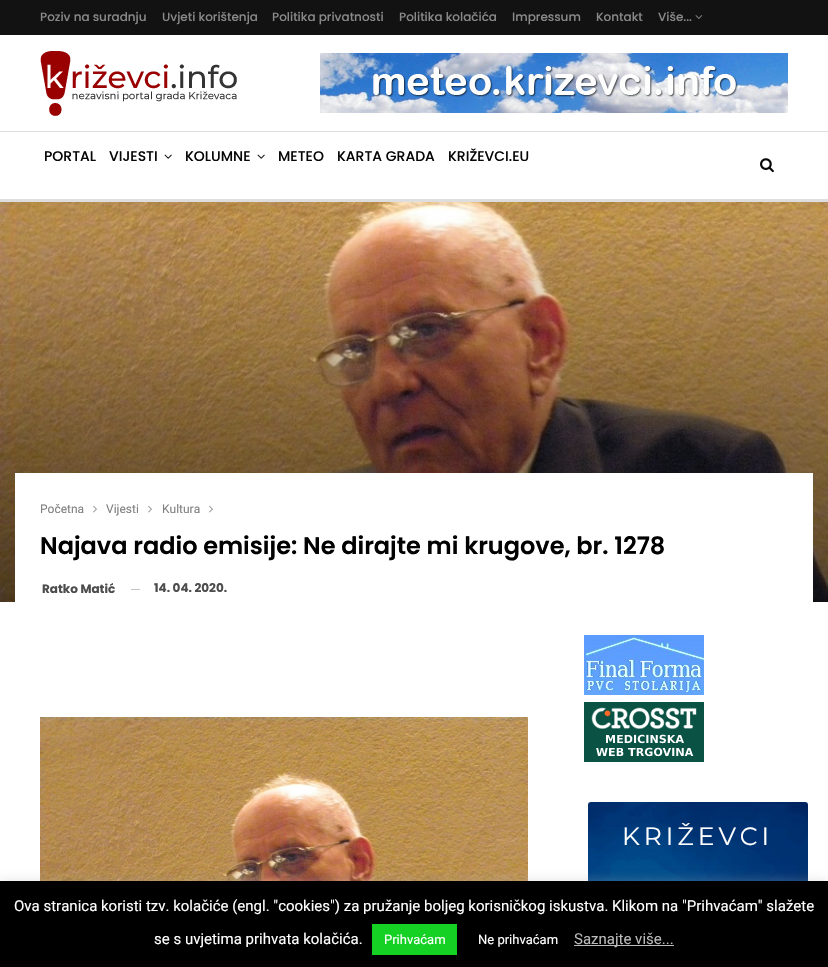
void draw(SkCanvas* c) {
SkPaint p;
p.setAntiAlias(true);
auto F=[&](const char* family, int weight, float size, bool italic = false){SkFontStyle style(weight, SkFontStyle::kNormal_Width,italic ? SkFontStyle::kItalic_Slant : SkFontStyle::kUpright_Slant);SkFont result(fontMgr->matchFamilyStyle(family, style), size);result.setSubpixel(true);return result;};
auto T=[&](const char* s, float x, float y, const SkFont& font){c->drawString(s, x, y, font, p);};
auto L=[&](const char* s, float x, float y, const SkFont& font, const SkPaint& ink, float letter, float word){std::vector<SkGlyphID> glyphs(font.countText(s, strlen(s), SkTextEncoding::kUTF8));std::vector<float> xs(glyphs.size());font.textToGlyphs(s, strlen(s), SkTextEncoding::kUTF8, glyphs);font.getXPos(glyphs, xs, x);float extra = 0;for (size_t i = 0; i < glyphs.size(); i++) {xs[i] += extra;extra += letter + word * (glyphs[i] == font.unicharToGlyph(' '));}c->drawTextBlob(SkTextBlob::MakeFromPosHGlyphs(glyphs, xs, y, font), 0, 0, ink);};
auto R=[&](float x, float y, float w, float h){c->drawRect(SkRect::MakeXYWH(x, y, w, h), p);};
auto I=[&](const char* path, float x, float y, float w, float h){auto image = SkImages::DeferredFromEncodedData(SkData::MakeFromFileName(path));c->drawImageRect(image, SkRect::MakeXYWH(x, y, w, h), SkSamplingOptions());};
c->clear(0xffffffff);
p.setColor(0xff121212);
R(0,0,828,35);
auto f1 = F("Poppins",500,12);
p.setColor(0xff898989);
T("Poziv na suradnju",40,21,f1);
T("Uvjeti korištenja",162,21,f1);
T("Politika privatnosti",272,21,f1);
T("Politika kolačića",399,21,f1);
T("Impressum",512,21,f1);
T("Kontakt",596,21,f1);
T("Više...",658,21,f1);
I("1.png",695,15,8,4);
I("2.png",40,51,197,65);
I("3.png",320,53,468,60);
p.setColor(0xffdedede);
R(0,131,828,1);
R(0,199,828,3);
auto f2 = F("Poppins",500,14);
p.setColor(0xff070707);
T("PORTAL",44,161,f2);
T("VIJESTI",109,161,f2);
I("4.png",164,154,8,5);
T("KOLUMNE",185,161,f2);
I("4.png",257,154,8,5);
T("METEO",278,161,f2);
T("KARTA GRADA",337,161,f2);
T("KRIŽEVCI.EU",448,161,f2);
I("5.png",760,158,14,15);
I("6.png",0,202,828,400);
p.setColor(0xffffffff);
R(15,473,798,129);
auto f3 = F("Roboto",400,12);
p.setColor(0xff808080);
T("Početna",40,513,f3);
I("7.png",93,505,4,8);
T("Vijesti",106,513,f3);
I("7.png",148,505,4,8);
T("Kultura",162,513,f3);
I("7.png",209,505,4,8);
auto f4 = F("Poppins",600,24);
p.setColor(0xff000000);
T("Najava radio emisije: Ne dirajte mi krugove, br. 1278",40,554,f4);
auto f5 = F("Poppins",700,12);
p.setColor(0xff4d4d4d);
T("Ratko Matić",42,593,f5);
p.setColor(0xffc4c4c4);
R(131,589,9,1);
p.setColor(0xff4d4d4d);
T("14. 04. 2020.",154,592,f5);
I("8.png",40,717,488,164);
I("9.png",584,635,120,60);
I("10.png",584,702,120,60);
I("11.png",588,802,220,79);
auto f6 = F("Montserrat",400,25);
p.setColor(0xffffffff);
L("KRIŽEVCI",622,845,f6,p,4,0);
p.setColor(0x4dacabab);
p.setMaskFilter(SkMaskFilter::MakeBlur(kNormal_SkBlurStyle, 5));
c->drawRect(SkRect::MakeXYWH(0,880,828,86),p);
p.setMaskFilter(nullptr);
p.setColor(0xff000000);
R(0,881,828,86);
auto f7 = F("Roboto",400,15);
p.setColor(0xffffffff);
T("Ova stranica koristi tzv. kolačiće (engl. \"cookies\") za pružanje boljeg korisničkog iskustva. Klikom na \"Prihvaćam\" slažete",14,911,f7);
T("se s uvjetima prihvata kolačića.",154,944,f7);
p.setColor(0xff14d124);
R(372,924,85,31);
auto f8 = F("Roboto",400,13);
p.setColor(0xffffffff);
T("Prihvaćam",384,944,f8);
T("Ne prihvaćam",478,944,f8);
p.setColor(0xffbababa);
R(574,945,100,1);
T("Saznajte više...",574,944,f7);
}
